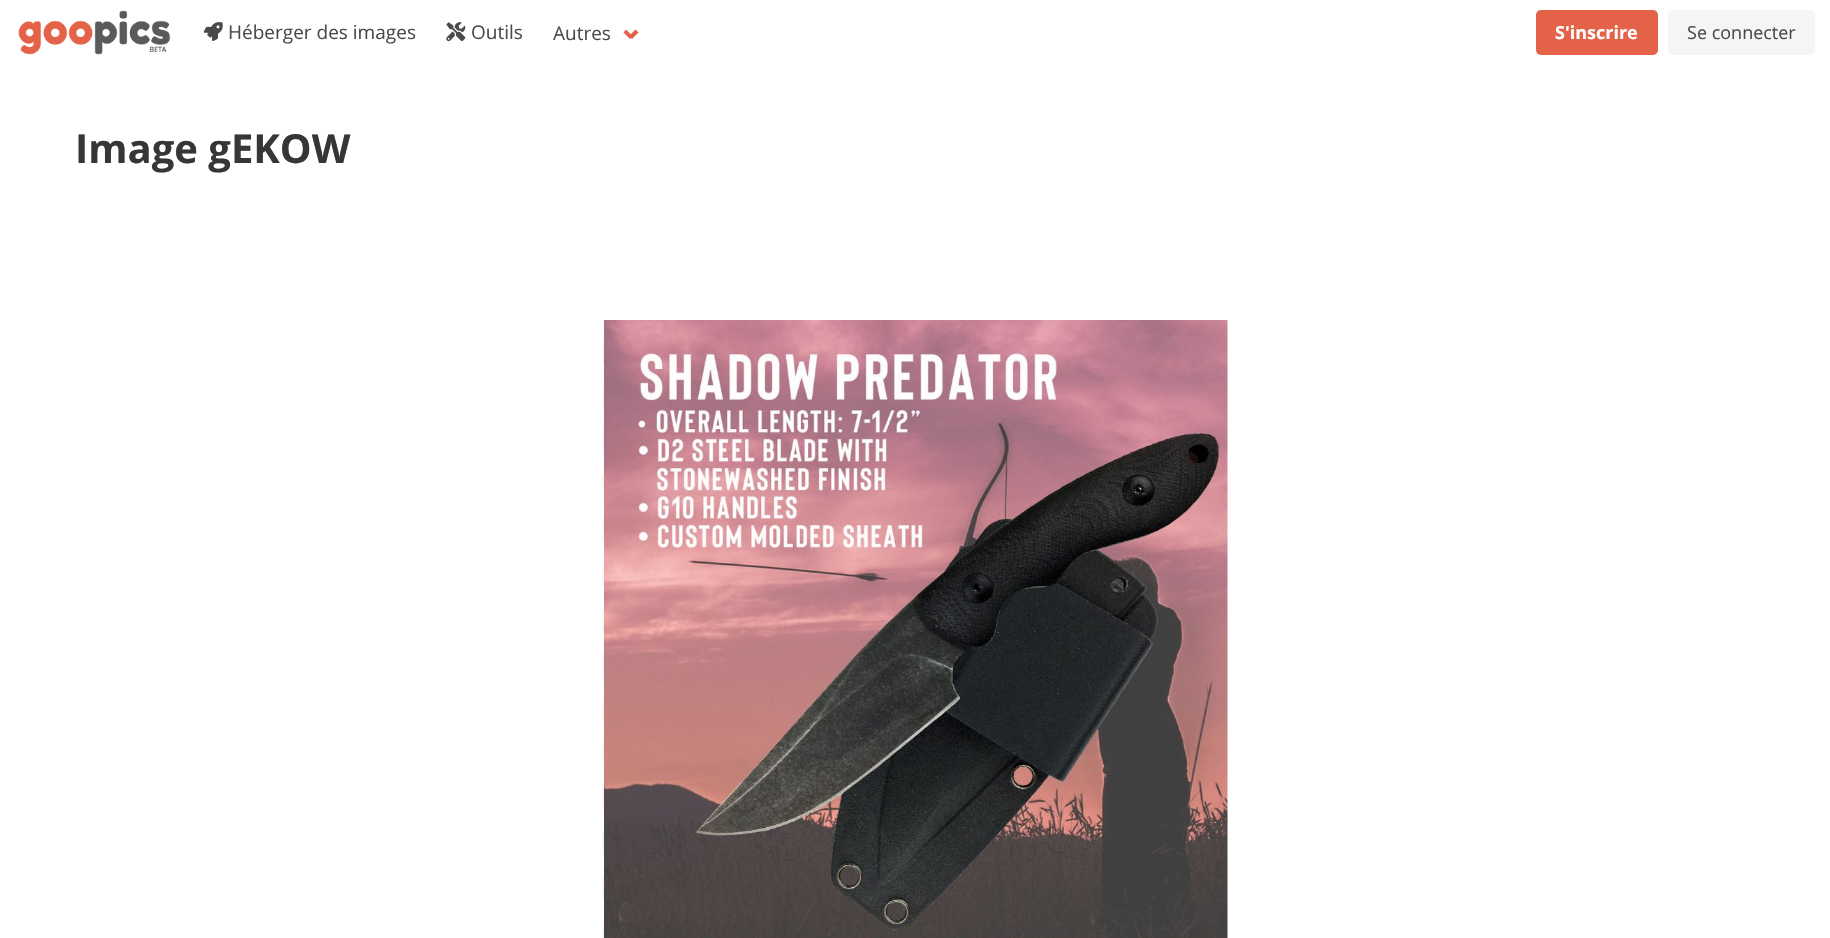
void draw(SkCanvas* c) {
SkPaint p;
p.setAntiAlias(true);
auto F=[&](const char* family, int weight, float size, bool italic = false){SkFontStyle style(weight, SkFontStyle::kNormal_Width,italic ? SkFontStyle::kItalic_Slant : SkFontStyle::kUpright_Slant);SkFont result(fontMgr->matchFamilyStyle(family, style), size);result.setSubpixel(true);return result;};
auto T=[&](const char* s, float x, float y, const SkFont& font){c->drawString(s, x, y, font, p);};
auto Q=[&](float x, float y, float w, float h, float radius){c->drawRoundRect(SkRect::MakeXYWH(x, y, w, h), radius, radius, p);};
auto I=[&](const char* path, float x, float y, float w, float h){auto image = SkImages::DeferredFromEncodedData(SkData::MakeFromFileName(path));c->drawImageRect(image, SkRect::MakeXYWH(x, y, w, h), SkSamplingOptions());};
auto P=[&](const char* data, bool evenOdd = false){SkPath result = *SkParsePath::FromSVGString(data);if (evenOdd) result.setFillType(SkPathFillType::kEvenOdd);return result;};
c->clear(0xffffffff);
I("1.png",18,10,153,45);
I("2.png",203,22,20,20);
auto f1 = F("Open Sans",400,19);
p.setColor(0xff4a4a4a);
T("Héberger des images",228,39,f1);
I("3.png",446,22,20,20);
T("Outils",471,39,f1);
T("Autres",553,40,f1);
p.setColor(0xffe46348);
c->drawPath(P("M629 36l6.5-6.5l3 3l-6.5 6.5z"),p);
c->drawPath(P("M623.5 32.5l2.5-3l6.5 6.5l-2.5 3z"),p);
Q(1536,10,122,45,5);
auto f2 = F("Open Sans",700,18);
p.setColor(0xffffffff);
T("S'inscrire",1555,39,f2);
p.setColor(0xfff5f5f5);
Q(1668,10,147,45,5);
auto f3 = F("Open Sans",400,18);
p.setColor(0xff4a4a4a);
T("Se connecter",1687,39,f3);
auto f4 = F("Open Sans",700,40);
p.setColor(0xff363636);
T("Image gEKOW",75,163,f4);
I("4.png",602,320,626,618);
}
